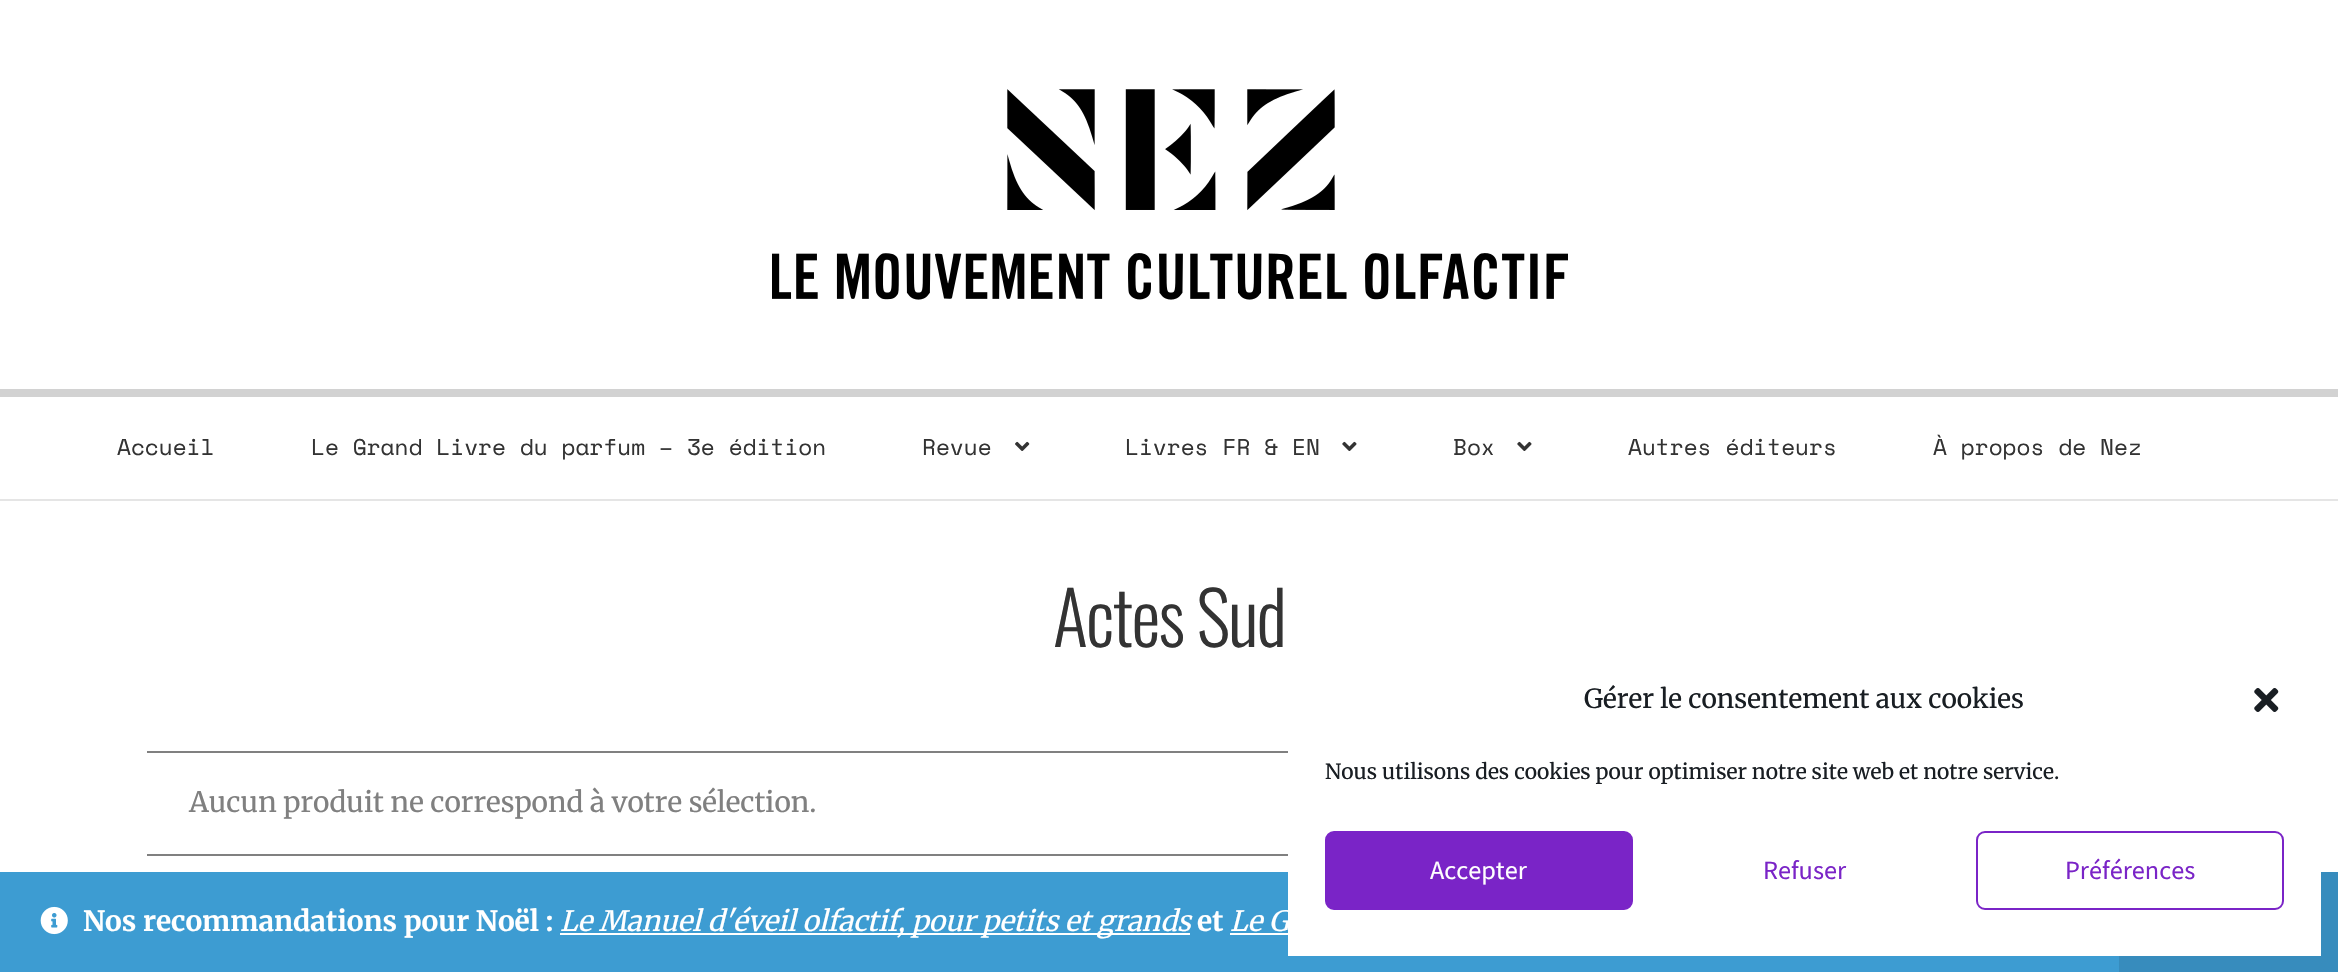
void draw(SkCanvas* c) {
SkPaint p;
p.setAntiAlias(true);
auto F=[&](const char* family, int weight, float size, bool italic = false){SkFontStyle style(weight, SkFontStyle::kNormal_Width,italic ? SkFontStyle::kItalic_Slant : SkFontStyle::kUpright_Slant);SkFont result(fontMgr->matchFamilyStyle(family, style), size);result.setSubpixel(true);return result;};
auto T=[&](const char* s, float x, float y, const SkFont& font){c->drawString(s, x, y, font, p);};
auto L=[&](const char* s, float x, float y, const SkFont& font, const SkPaint& ink, float letter, float word){std::vector<SkGlyphID> glyphs(font.countText(s, strlen(s), SkTextEncoding::kUTF8));std::vector<float> xs(glyphs.size());font.textToGlyphs(s, strlen(s), SkTextEncoding::kUTF8, glyphs);font.getXPos(glyphs, xs, x);float extra = 0;for (size_t i = 0; i < glyphs.size(); i++) {xs[i] += extra;extra += letter + word * (glyphs[i] == font.unicharToGlyph(' '));}c->drawTextBlob(SkTextBlob::MakeFromPosHGlyphs(glyphs, xs, y, font), 0, 0, ink);};
auto R=[&](float x, float y, float w, float h){c->drawRect(SkRect::MakeXYWH(x, y, w, h), p);};
auto I=[&](const char* path, float x, float y, float w, float h){auto image = SkImages::DeferredFromEncodedData(SkData::MakeFromFileName(path));c->drawImageRect(image, SkRect::MakeXYWH(x, y, w, h), SkSamplingOptions());};
c->clear(0xffffffff);
p.setColor(0xffe5e5e5);
R(0,499,2338,2);
p.setColor(0xffd2d2d2);
R(0,389,2338,8);
I("1.png",772,89,796,211);
auto f1 = F("Space Mono",400,22.75);
p.setColor(0xff333333);
T("Accueil",117,455,f1);
T("Le Grand Livre du parfum – 3e édition",311,455,f1);
T("Revue",922,455,f1);
I("2.png",1015,441,15,10);
T("Livres FR & EN",1125,455,f1);
I("3.png",1342,441,15,10);
T("Box",1453,455,f1);
I("3.png",1517,441,15,10);
T("Autres éditeurs",1628,455,f1);
T("À propos de Nez",1933,455,f1);
auto f2 = F("Oswald",300,73);
L("Actes Sud",1053,647,f2,p,-1.75,0);
p.setColor(0xff808080);
R(147,751,1141,2);
R(147,854,1141,2);
auto f3 = F("Merriweather",400,28);
T("Aucun produit ne correspond à votre sélection.",189,812,f3);
p.setColor(0xff3d9cd2);
R(0,872,2119,100);
p.setColor(0xff378cbd);
R(2119,872,219,100);
p.setColor(0xffffffff);
R(1288,872,1033,84);
auto f4 = F("Merriweather",400,26.25);
p.setColor(0xff191e23);
T("Gérer le consentement aux cookies",1584,708,f4);
I("4.png",2254,688,25,24);
auto f5 = F("Merriweather",400,21);
T("Nous utilisons des cookies pour optimiser notre site web et notre service.",1325,779,f5);
p.setColor(0xff7a24c7);
c->drawRoundRect(SkRect::MakeXYWH(1326,832,306,77),8,8,p);
p.setStroke(true);
p.setStrokeWidth(2);
c->drawRoundRect(SkRect::MakeXYWH(1326,832,306,77),8,8,p);
auto f6 = F("Source Sans Pro",400,26.25);
p.setStroke(false);
p.setColor(0xffffffff);
T("Accepter",1430,879,f6);
p.setColor(0xff7a24c7);
T("Refuser",1763,879,f6);
p.setStroke(true);
c->drawRoundRect(SkRect::MakeXYWH(1977,832,306,77),8,8,p);
p.setStroke(false);
T("Préférences",2065,879,f6);
I("5.png",40,906,28,29);
auto f7 = F("Merriweather",700,28);
p.setColor(0xffffffff);
T("Nos recommandations pour Noël :",83,931,f7);
R(560,933,630,2);
auto f8 = F("Merriweather",400,28,true);
T("Le Manuel d'éveil olfactif, pour petits et grands",560,931,f8);
T("et",1197,931,f7);
T("Le G",1230,931,f8);
R(1230,933,58,2);
}
